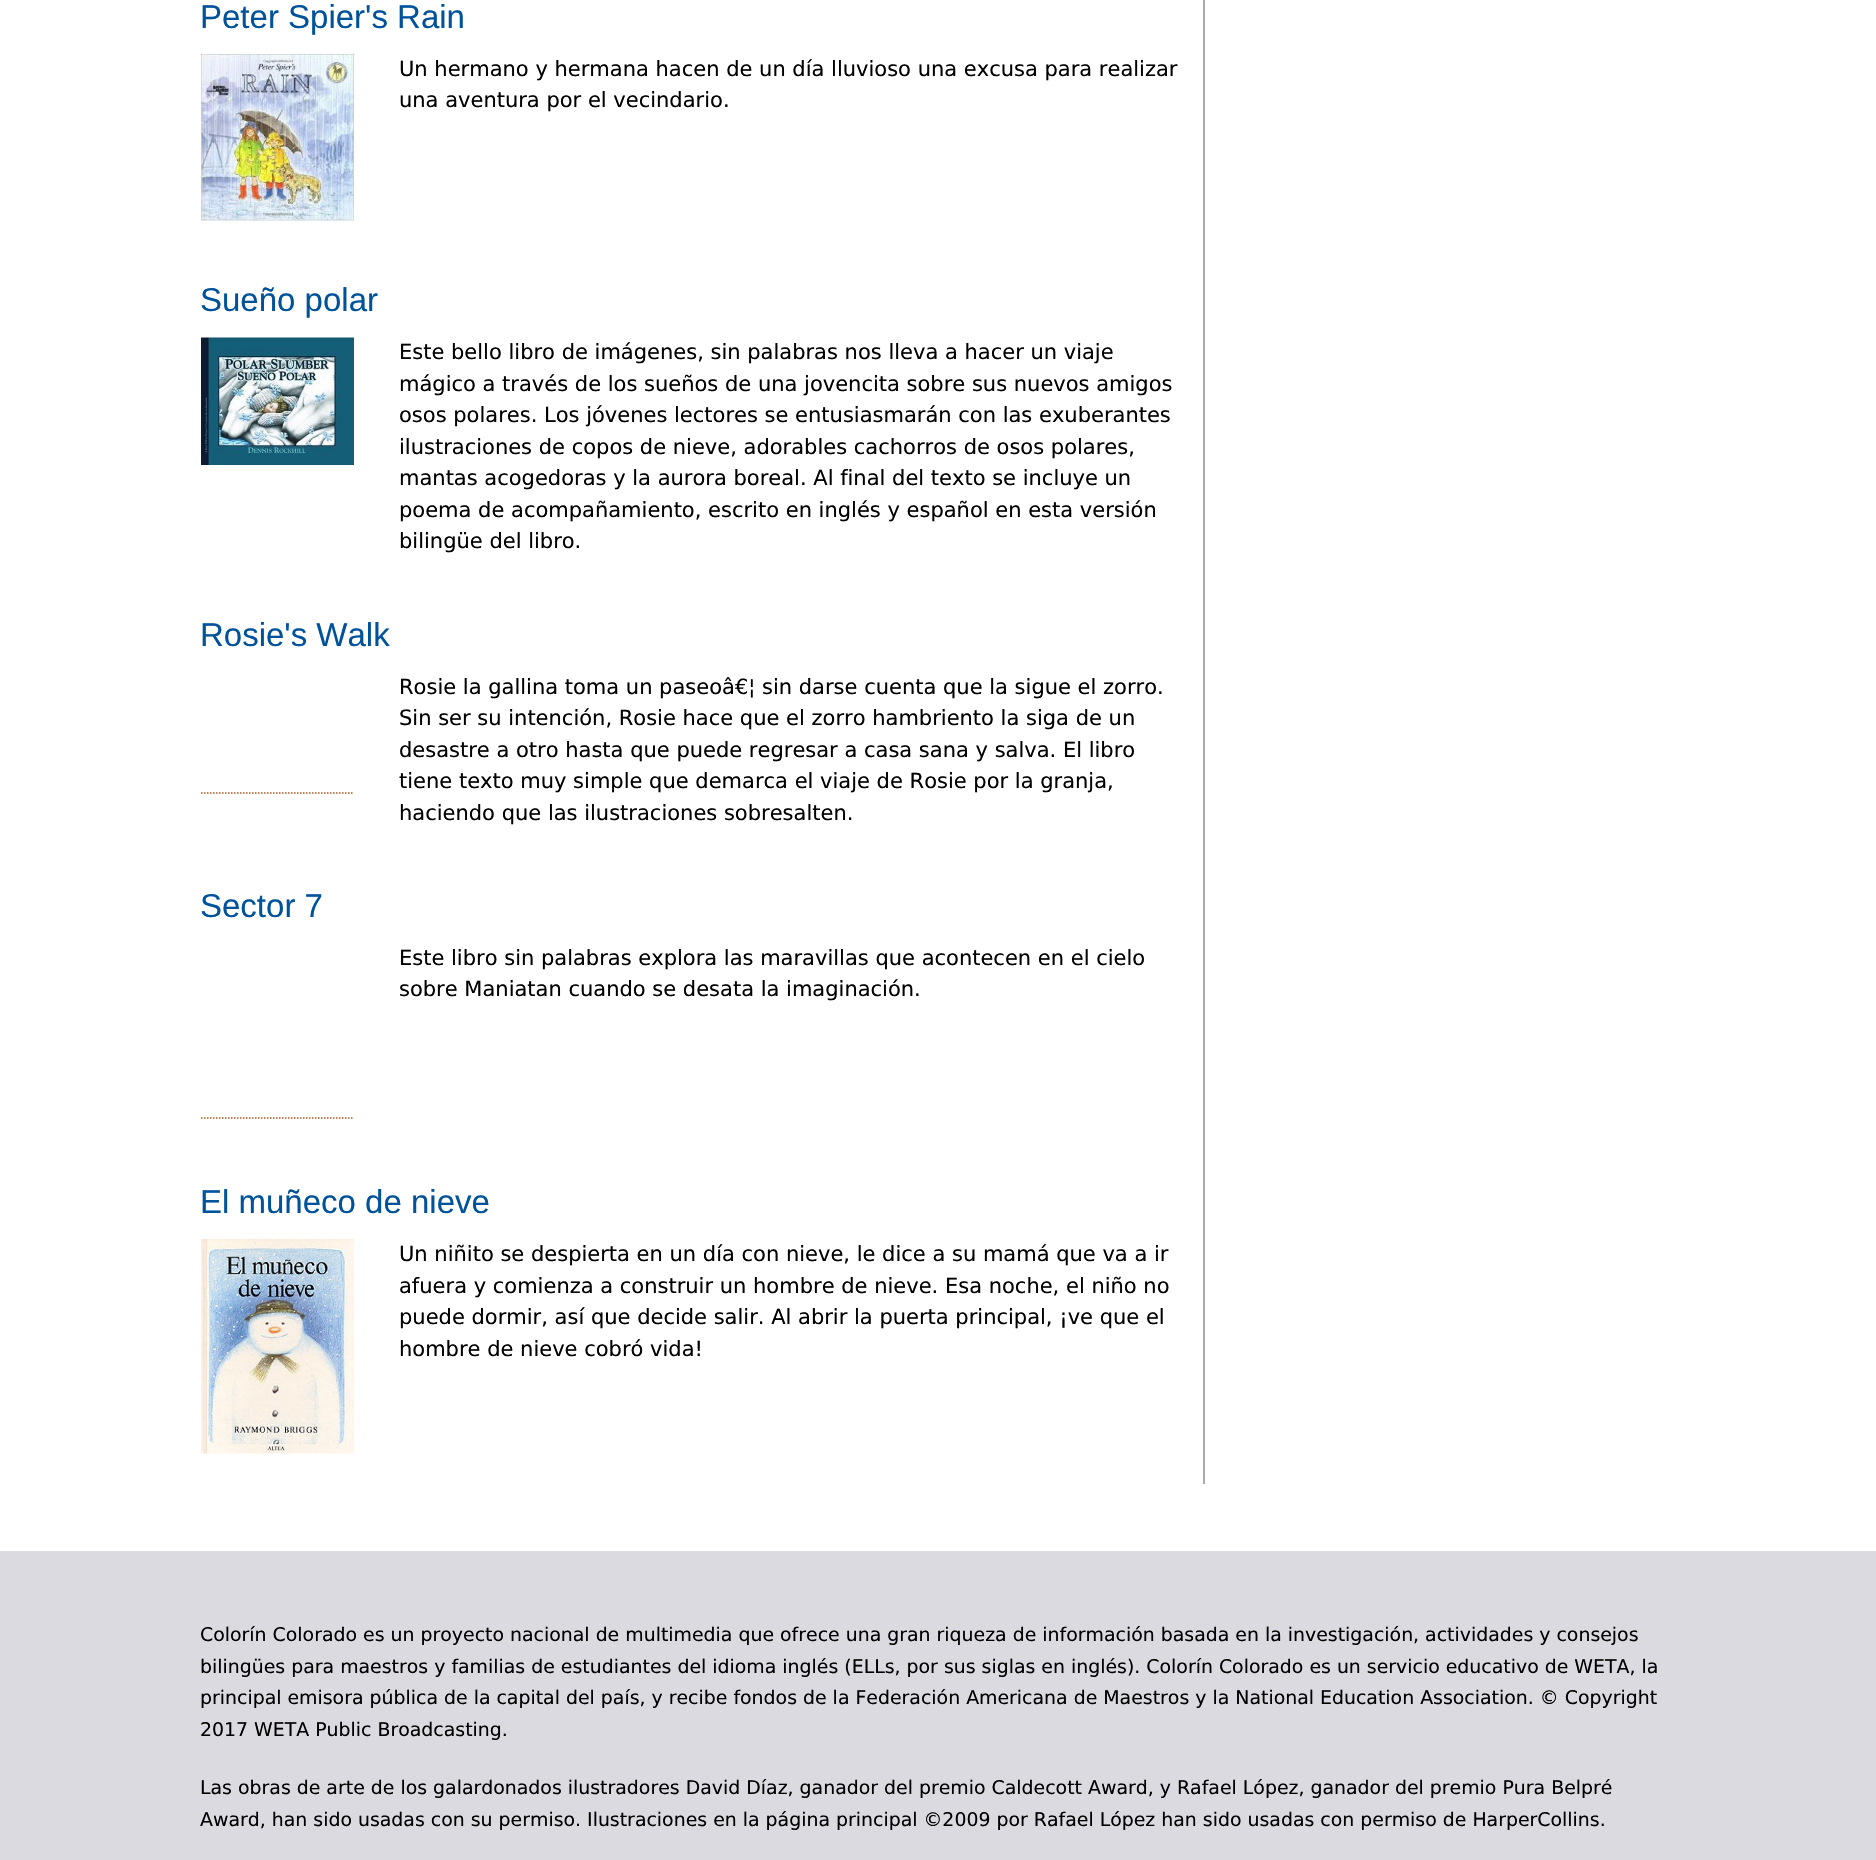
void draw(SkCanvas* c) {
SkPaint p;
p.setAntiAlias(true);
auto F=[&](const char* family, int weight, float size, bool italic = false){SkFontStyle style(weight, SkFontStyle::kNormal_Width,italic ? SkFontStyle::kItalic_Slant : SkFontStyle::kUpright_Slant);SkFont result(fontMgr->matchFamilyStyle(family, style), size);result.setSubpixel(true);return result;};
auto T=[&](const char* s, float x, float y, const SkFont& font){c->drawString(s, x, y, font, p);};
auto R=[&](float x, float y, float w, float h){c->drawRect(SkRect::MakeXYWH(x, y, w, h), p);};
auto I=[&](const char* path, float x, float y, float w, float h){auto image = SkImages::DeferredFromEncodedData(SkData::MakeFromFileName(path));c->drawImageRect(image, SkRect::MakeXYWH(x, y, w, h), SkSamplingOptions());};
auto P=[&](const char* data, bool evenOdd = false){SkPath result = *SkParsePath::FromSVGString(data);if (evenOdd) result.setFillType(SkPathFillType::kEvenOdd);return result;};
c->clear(0xffffffff);
p.setColor(0xffaaaaaa);
R(1203,0,2,1484);
auto f1 = F("Liberation Sans",400,33);
p.setColor(0xff00539b);
T("Peter Spier's Rain",200,28,f1);
I("1.png",201,54,153,167);
auto f2 = F("DejaVu Sans",400,21);
p.setColor(0xff000000);
T("Un hermano y hermana hacen de un día lluvioso una excusa para realizar",399,76,f2);
T("una aventura por el vecindario.",399,107,f2);
p.setColor(0xff00539b);
T("Sueño polar",200,311,f1);
I("2.png",201,337,153,128);
p.setColor(0xff000000);
T("Este bello libro de imágenes, sin palabras nos lleva a hacer un viaje",399,359,f2);
T("mágico a través de los sueños de una jovencita sobre sus nuevos amigos",399,391,f2);
T("osos polares. Los jóvenes lectores se entusiasmarán con las exuberantes",399,422,f2);
T("ilustraciones de copos de nieve, adorables cachorros de osos polares,",399,454,f2);
T("mantas acogedoras y la aurora boreal. Al final del texto se incluye un",399,485,f2);
T("poema de acompañamiento, escrito en inglés y español en esta versión",399,517,f2);
T("bilingüe del libro.",399,548,f2);
p.setColor(0xff00539b);
T("Rosie's Walk",200,646,f1);
p.setStroke(true);
p.setStrokeWidth(1.5);
p.setColor(0xffb7531c);
p.setPathEffect(SkDashPathEffect::Make({{1.5f,1.5f}}, 0));
c->drawPath(P("M201 793h153"),p);
p.setPathEffect(nullptr);
p.setStroke(false);
p.setColor(0xff000000);
T("Rosie la gallina toma un paseoâ€¦ sin darse cuenta que la sigue el zorro.",399,694,f2);
T("Sin ser su intención, Rosie hace que el zorro hambriento la siga de un",399,725,f2);
T("desastre a otro hasta que puede regresar a casa sana y salva. El libro",399,757,f2);
T("tiene texto muy simple que demarca el viaje de Rosie por la granja,",399,788,f2);
T("haciendo que las ilustraciones sobresalten.",399,820,f2);
p.setColor(0xff00539b);
T("Sector 7",200,917,f1);
p.setColor(0xff000000);
T("Este libro sin palabras explora las maravillas que acontecen en el cielo",399,965,f2);
T("sobre Maniatan cuando se desata la imaginación.",399,996,f2);
p.setStroke(true);
p.setColor(0xffb7531c);
p.setPathEffect(SkDashPathEffect::Make({{1.5f,1.5f}}, 0));
c->drawPath(P("M201 1118h153"),p);
p.setPathEffect(nullptr);
p.setStroke(false);
p.setColor(0xff00539b);
T("El muñeco de nieve",200,1213,f1);
I("3.png",201,1239,153,215);
p.setColor(0xff000000);
T("Un niñito se despierta en un día con nieve, le dice a su mamá que va a ir",399,1261,f2);
T("afuera y comienza a construir un hombre de nieve. Esa noche, el niño no",399,1293,f2);
T("puede dormir, así que decide salir. Al abrir la puerta principal, ¡ve que el",399,1324,f2);
T("hombre de nieve cobró vida!",399,1356,f2);
p.setColor(0xffdbdae0);
R(0,1551,1876,309);
auto f3 = F("DejaVu Sans",400,18.9);
p.setColor(0xff000000);
T("Colorín Colorado es un proyecto nacional de multimedia que ofrece una gran riqueza de información basada en la investigación, actividades y consejos",200,1641,f3);
T("bilingües para maestros y familias de estudiantes del idioma inglés (ELLs, por sus siglas en inglés). Colorín Colorado es un servicio educativo de WETA, la",200,1673,f3);
T("principal emisora pública de la capital del país, y recibe fondos de la Federación Americana de Maestros y la National Education Association. © Copyright",200,1704,f3);
T("2017 WETA Public Broadcasting.",200,1736,f3);
T("Las obras de arte de los galardonados ilustradores David Díaz, ganador del premio Caldecott Award, y Rafael López, ganador del premio Pura Belpré",200,1794,f3);
T("Award, han sido usadas con su permiso. Ilustraciones en la página principal ©2009 por Rafael López han sido usadas con permiso de HarperCollins.",200,1826,f3);
}
